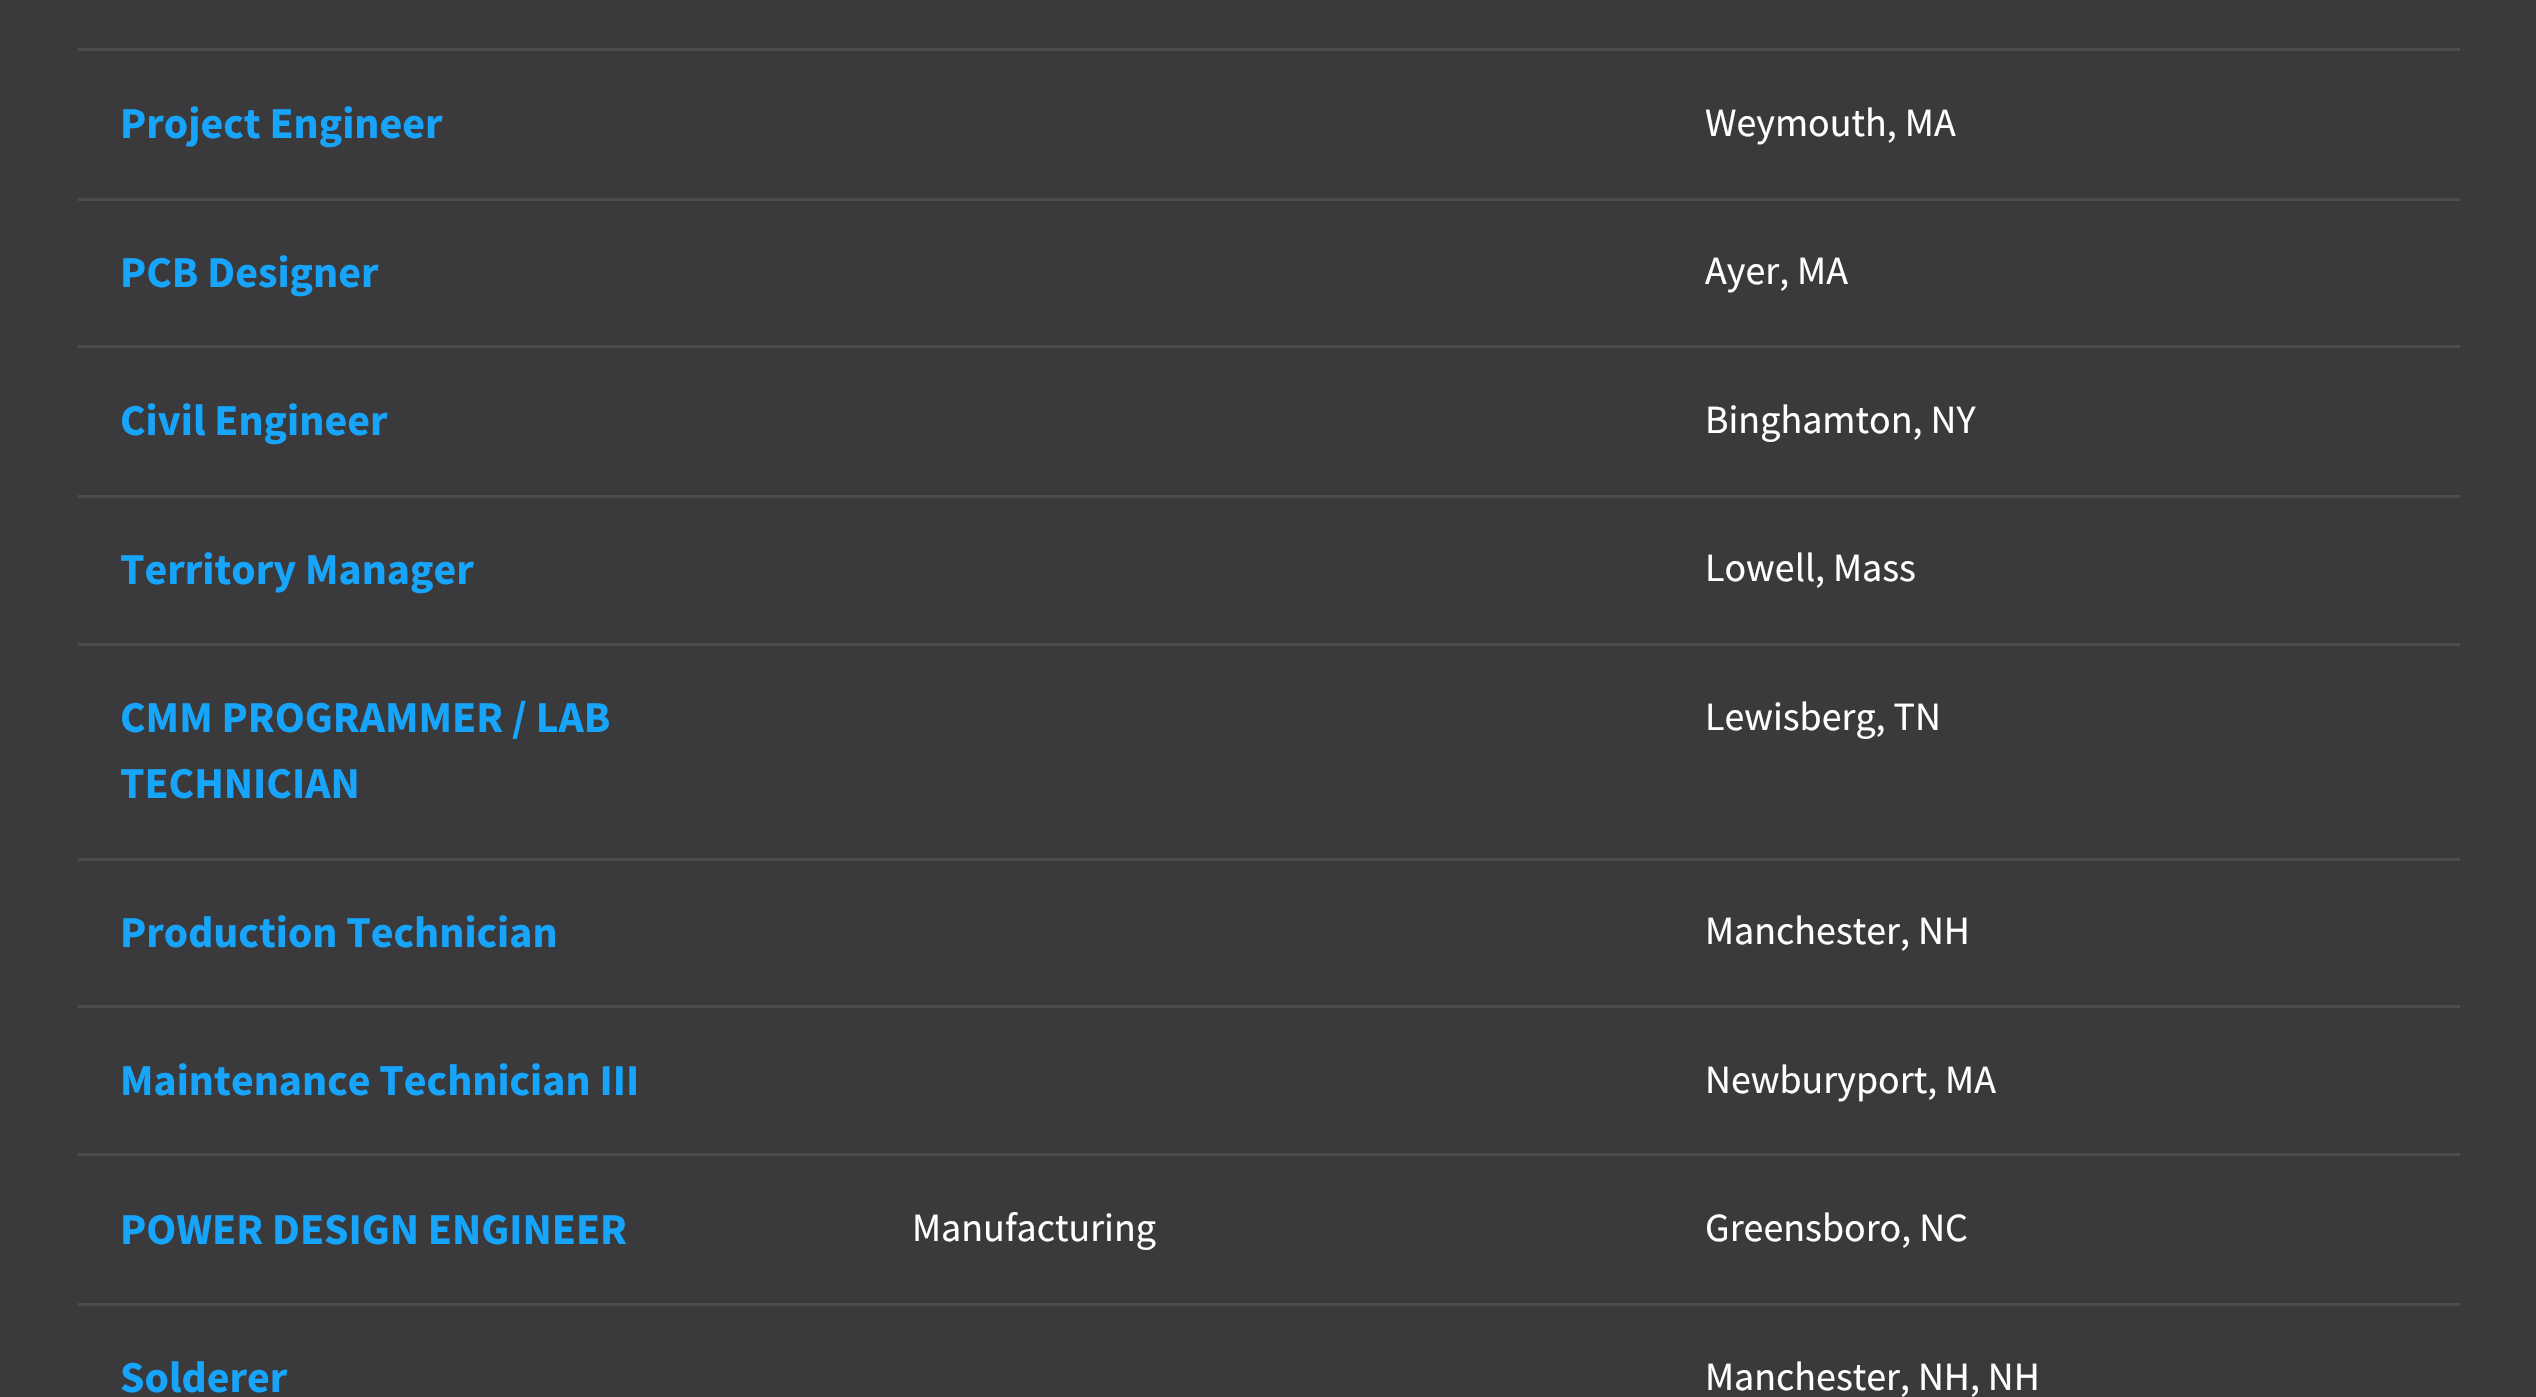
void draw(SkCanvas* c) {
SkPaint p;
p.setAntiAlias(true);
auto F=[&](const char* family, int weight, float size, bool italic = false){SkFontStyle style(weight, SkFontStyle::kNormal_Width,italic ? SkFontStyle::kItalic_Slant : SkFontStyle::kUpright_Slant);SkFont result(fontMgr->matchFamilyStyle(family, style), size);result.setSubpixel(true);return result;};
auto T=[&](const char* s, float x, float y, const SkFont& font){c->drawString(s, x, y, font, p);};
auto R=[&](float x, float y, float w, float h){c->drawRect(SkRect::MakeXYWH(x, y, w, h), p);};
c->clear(0xff3a393b);
p.setColor(0xff4c4b4d);
R(78,48,2382,3);
auto f1 = F("Source Sans Pro",700,44);
p.setColor(0xff17a4fb);
T("Project Engineer",120,138,f1);
auto f2 = F("Source Sans Pro",400,40);
p.setColor(0xffffffff);
T("Weymouth, MA",1705,136,f2);
p.setColor(0xff4c4b4d);
R(78,198,2382,3);
p.setColor(0xff17a4fb);
T("PCB Designer",120,287,f1);
p.setColor(0xffffffff);
T("Ayer, MA",1705,284,f2);
p.setColor(0xff4c4b4d);
R(78,345,2382,3);
p.setColor(0xff17a4fb);
T("Civil Engineer",120,435,f1);
p.setColor(0xffffffff);
T("Binghamton, NY",1705,433,f2);
p.setColor(0xff4c4b4d);
R(78,495,2382,3);
p.setColor(0xff17a4fb);
T("Territory Manager",120,584,f1);
p.setColor(0xffffffff);
T("Lowell, Mass",1705,581,f2);
p.setColor(0xff4c4b4d);
R(78,643,2382,3);
p.setColor(0xff17a4fb);
T("CMM PROGRAMMER / LAB",120,732,f1);
T("TECHNICIAN",120,798,f1);
p.setColor(0xffffffff);
T("Lewisberg, TN",1705,730,f2);
p.setColor(0xff4c4b4d);
R(78,858,2382,3);
p.setColor(0xff17a4fb);
T("Production Technician",120,947,f1);
p.setColor(0xffffffff);
T("Manchester, NH",1705,944,f2);
p.setColor(0xff4c4b4d);
R(78,1005,2382,3);
p.setColor(0xff17a4fb);
T("Maintenance Technician III",120,1095,f1);
p.setColor(0xffffffff);
T("Newburyport, MA",1705,1093,f2);
p.setColor(0xff4c4b4d);
R(78,1153,2382,3);
p.setColor(0xff17a4fb);
T("POWER DESIGN ENGINEER",120,1244,f1);
p.setColor(0xffffffff);
T("Manufacturing",912,1241,f2);
T("Greensboro, NC",1705,1241,f2);
p.setColor(0xff4c4b4d);
R(78,1303,2382,3);
p.setColor(0xff17a4fb);
T("Solderer",120,1392,f1);
p.setColor(0xffffffff);
T("Manchester, NH, NH",1705,1390,f2);
}
